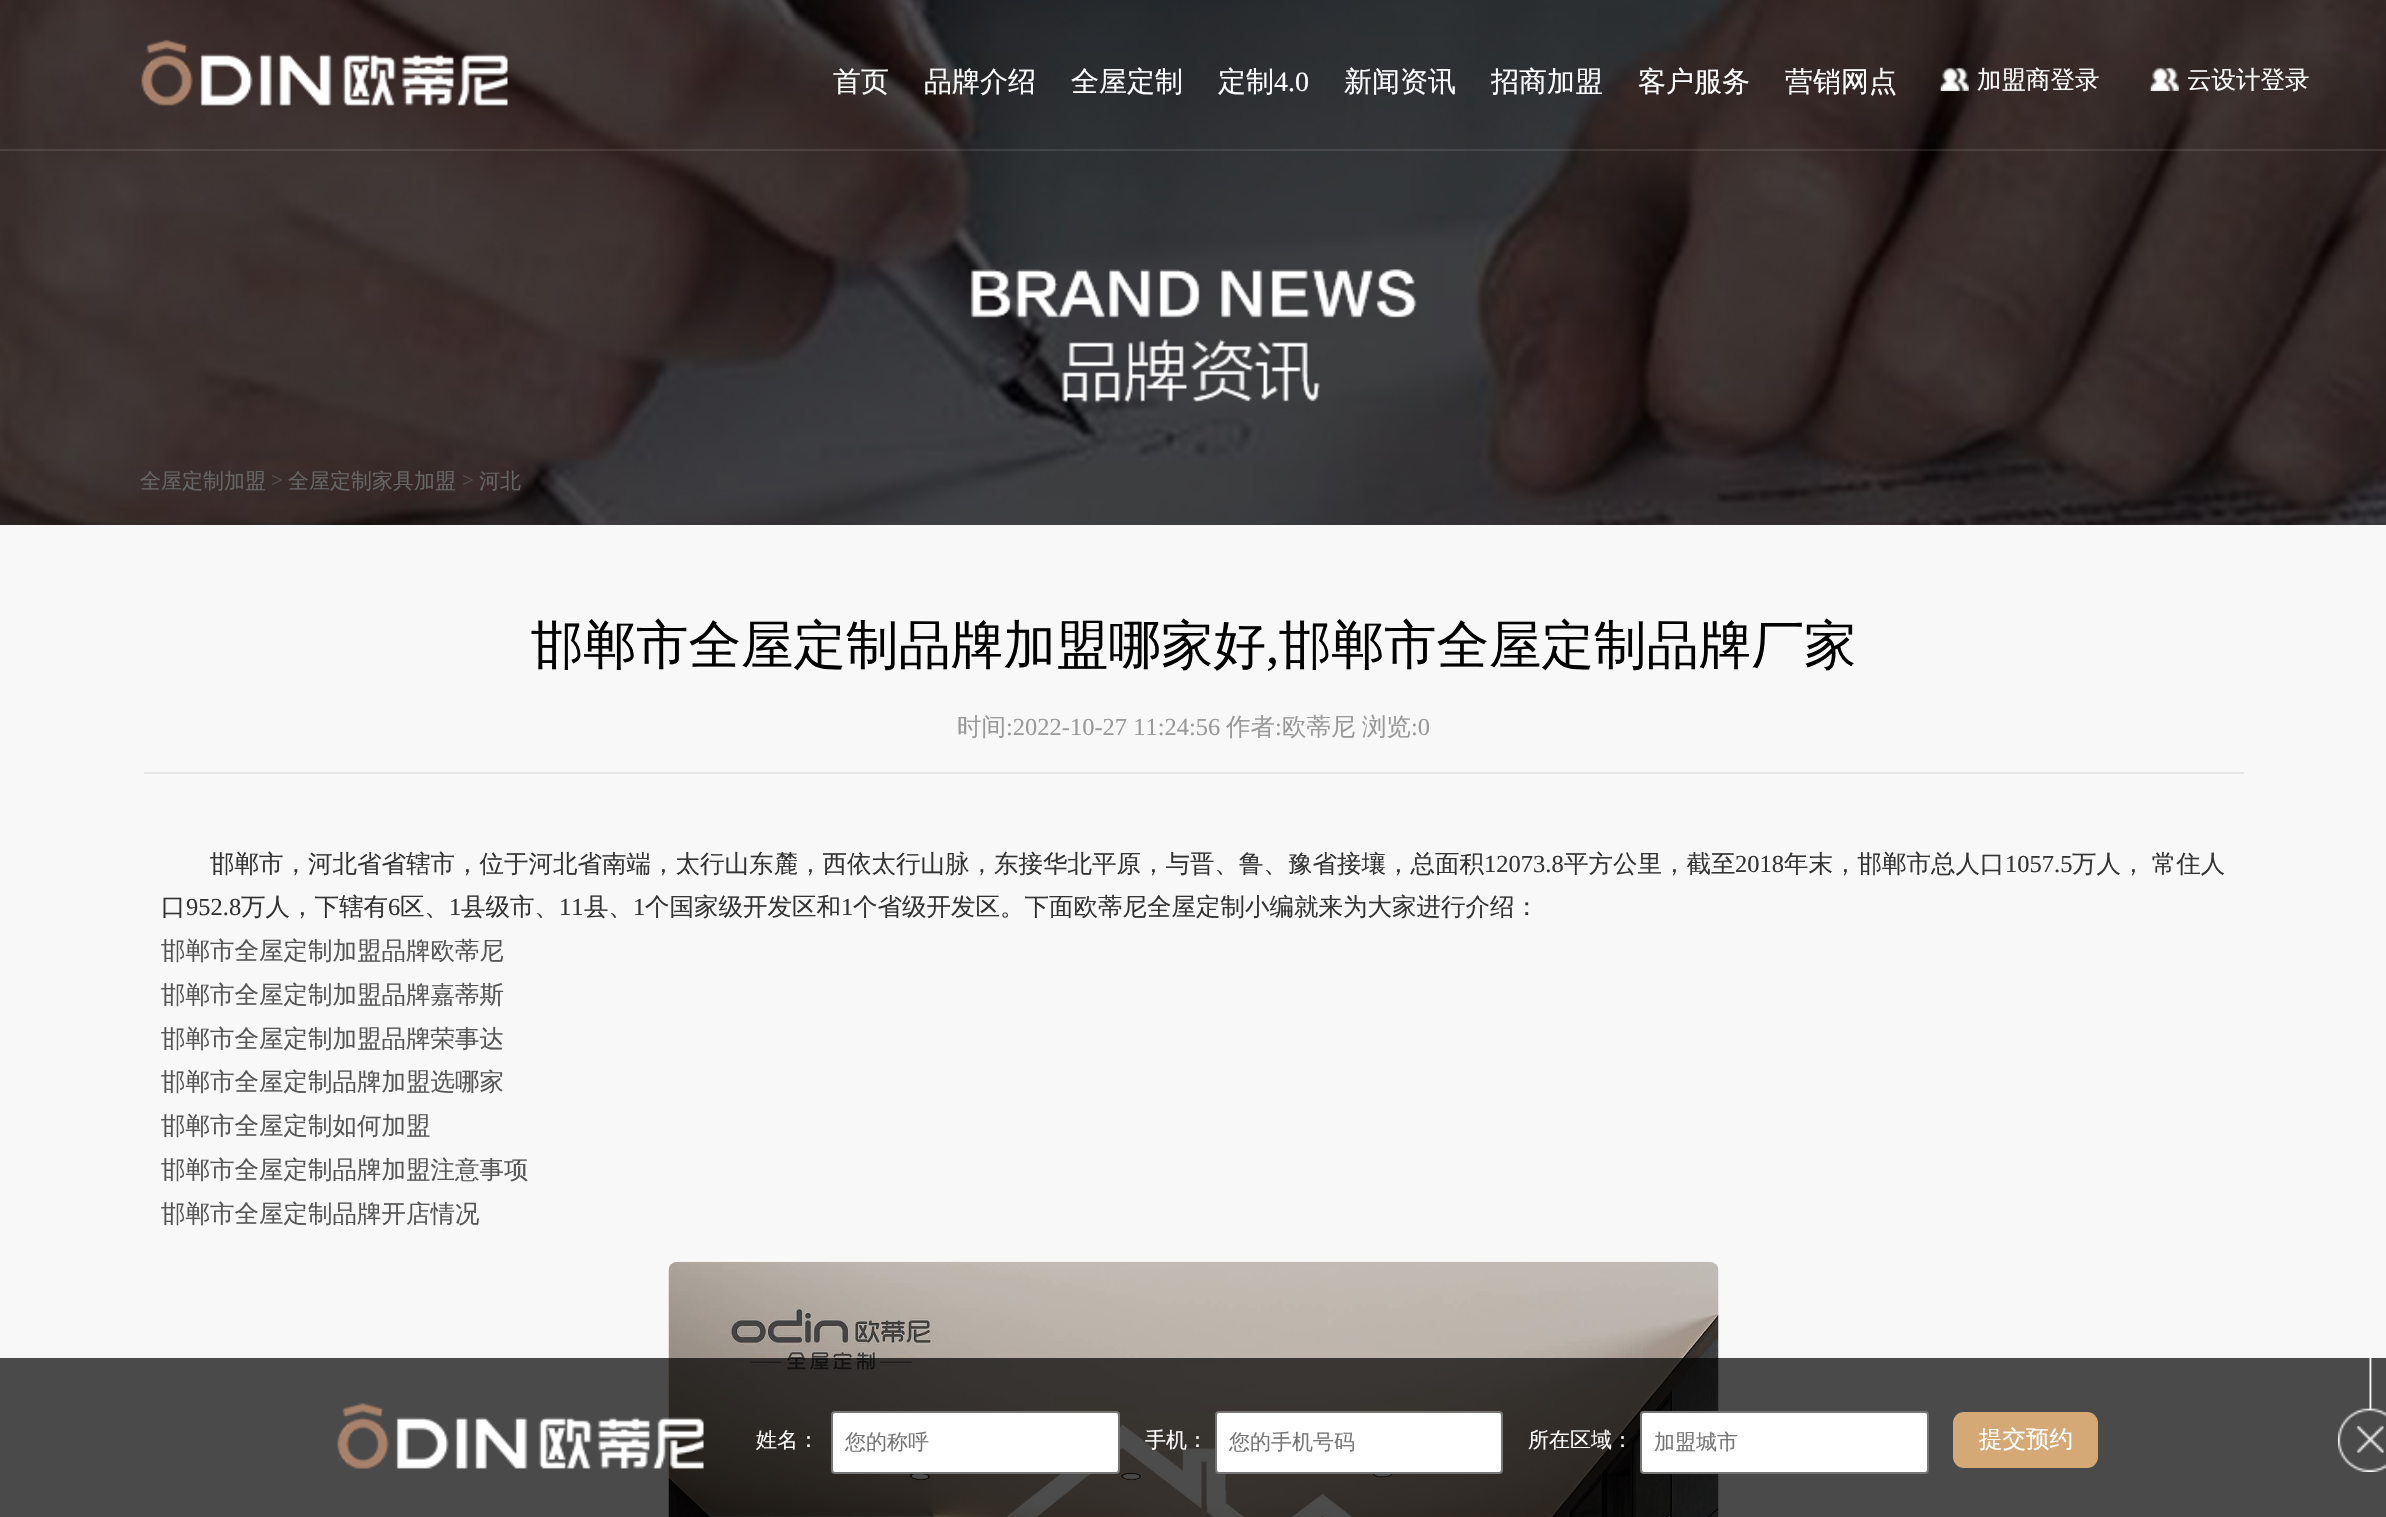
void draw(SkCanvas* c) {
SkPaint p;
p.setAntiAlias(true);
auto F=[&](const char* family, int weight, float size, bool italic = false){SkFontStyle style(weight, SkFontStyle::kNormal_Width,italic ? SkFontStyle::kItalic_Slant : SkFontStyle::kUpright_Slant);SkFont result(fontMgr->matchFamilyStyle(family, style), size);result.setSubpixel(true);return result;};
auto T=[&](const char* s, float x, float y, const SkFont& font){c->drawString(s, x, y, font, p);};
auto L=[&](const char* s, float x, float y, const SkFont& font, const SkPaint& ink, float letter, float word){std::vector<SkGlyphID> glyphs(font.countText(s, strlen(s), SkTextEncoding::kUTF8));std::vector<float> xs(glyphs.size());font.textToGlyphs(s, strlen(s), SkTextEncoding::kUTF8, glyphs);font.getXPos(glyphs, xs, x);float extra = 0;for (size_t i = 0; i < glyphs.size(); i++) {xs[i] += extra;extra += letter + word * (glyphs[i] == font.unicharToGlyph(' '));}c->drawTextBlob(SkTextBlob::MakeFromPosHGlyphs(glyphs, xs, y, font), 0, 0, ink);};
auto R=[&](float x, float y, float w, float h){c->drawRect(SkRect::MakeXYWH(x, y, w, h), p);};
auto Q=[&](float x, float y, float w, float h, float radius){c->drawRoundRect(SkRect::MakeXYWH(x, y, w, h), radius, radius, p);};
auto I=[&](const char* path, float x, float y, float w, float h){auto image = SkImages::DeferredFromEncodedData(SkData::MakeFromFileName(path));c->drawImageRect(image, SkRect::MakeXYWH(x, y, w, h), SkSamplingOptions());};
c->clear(0xffffffff);
I("1.png",0,0,2386,525);
p.setColor(0x1affffff);
R(0,149,2386,2);
I("2.png",141,39,367,67);
auto f1 = F("WenQuanYi Zen Hei",500,28);
p.setColor(0xffffffff);
T("首页",833,91,f1);
T("品牌介绍",924,91,f1);
T("全屋定制",1071,91,f1);
T("定制",1218,91,f1);
auto f2 = F("Liberation Serif",400,28);
T("4.0",1274,91,f2);
T("新闻资讯",1344,91,f1);
T("招商加盟",1491,91,f1);
T("客户服务",1638,91,f1);
T("营销网点",1785,91,f1);
I("3.png",1940,67,29,24);
auto f3 = F("WenQuanYi Zen Hei",500,24.5);
T("加盟商登录",1977,88,f3);
I("4.png",2150,67,29,24);
T("云设计登录",2187,88,f3);
p.setColor(0xfff8f8f8);
R(0,525,2386,992);
auto f4 = F("WenQuanYi Zen Hei",500,21);
p.setColor(0xff666666);
T("全屋定制加盟",140,488,f4);
auto f5 = F("Liberation Serif",400,21);
p.setColor(0xff555555);
T(">",271,487,f5);
p.setColor(0xff666666);
T("全屋定制家具加盟",288,488,f4);
p.setColor(0xff555555);
T(">",462,487,f5);
p.setColor(0xff666666);
T("河北",479,488,f4);
p.setColor(0xffe6e6e6);
R(144,772,2100,2);
auto f6 = F("WenQuanYi Zen Hei",500,52.5);
p.setColor(0xff000000);
T("邯郸市全屋定制品牌加盟哪家好",531,663,f6);
auto f7 = F("Liberation Serif",400,52.5);
T(",",1266,663,f7);
T("邯郸市全屋定制品牌厂家",1279,663,f6);
p.setColor(0xff999999);
T("时间",957,735,f3);
auto f8 = F("Liberation Serif",400,24.5);
T(":2022-10-27 11:24:56",1006,735,f8);
T("作者",1226,735,f3);
T(":",1275,735,f8);
T("欧蒂尼",1282,735,f3);
T("浏览",1362,735,f3);
T(":0",1411,735,f8);
p.setColor(0xff333333);
T("邯郸市，河北省省辖市，位于河北省南端，太行山东麓，西依太行山脉，东接华北平原，与晋、鲁、豫省接壤，总面积",210,872,f3);
T("12073.8",1484,872,f8);
T("平方公里，截至",1564,872,f3);
T("2018",1735,872,f8);
T("年末，邯郸市总人口",1784,872,f3);
T("1057.5",2005,872,f8);
L("万人， 常住人",2072,872,f3,p,0,-1);
T("口",161,915,f3);
T("952.8",186,915,f8);
T("万人，下辖有",241,915,f3);
T("6",388,915,f8);
T("区、",400,915,f3);
T("1",449,915,f8);
T("县级市、",461,915,f3);
T("11",559,915,f8);
T("县、",584,915,f3);
T("1",633,915,f8);
T("个国家级开发区和",645,915,f3);
T("1",841,915,f8);
T("个省级开发区。下面欧蒂尼全屋定制小编就来为大家进行介绍：",853,915,f3);
p.setColor(0xff555555);
T("邯郸市全屋定制加盟品牌欧蒂尼",161,959,f3);
T("邯郸市全屋定制加盟品牌嘉蒂斯",161,1003,f3);
T("邯郸市全屋定制加盟品牌荣事达",161,1047,f3);
T("邯郸市全屋定制品牌加盟选哪家",161,1090,f3);
T("邯郸市全屋定制如何加盟",161,1134,f3);
T("邯郸市全屋定制品牌加盟注意事项",161,1178,f3);
T("邯郸市全屋定制品牌开店情况",161,1222,f3);
I("5.png",668,1261,1051,256);
p.setColor(0xb3000000);
R(0,1358,2386,159);
I("6.png",337,1403,367,66);
p.setColor(0xffffffff);
T("姓名：",756,1447,f4);
c->drawRoundRect(SkRect::MakeXYWH(832,1412,287,61),3,3,p);
p.setStroke(true);
p.setStrokeWidth(2);
p.setColor(0xff767676);
c->drawRoundRect(SkRect::MakeXYWH(832,1412,287,61),3,3,p);
p.setStroke(false);
p.setColor(0xff757575);
T("您的称呼",845,1449,f4);
p.setColor(0xffffffff);
T("手机：",1145,1447,f4);
c->drawRoundRect(SkRect::MakeXYWH(1216,1412,286,61),3,3,p);
p.setStroke(true);
p.setColor(0xff767676);
c->drawRoundRect(SkRect::MakeXYWH(1216,1412,286,61),3,3,p);
p.setStroke(false);
p.setColor(0xff757575);
T("您的手机号码",1229,1449,f4);
p.setColor(0xffffffff);
T("所在区域：",1528,1447,f4);
c->drawRoundRect(SkRect::MakeXYWH(1641,1412,287,61),3,3,p);
p.setStroke(true);
p.setColor(0xff767676);
c->drawRoundRect(SkRect::MakeXYWH(1641,1412,287,61),3,3,p);
p.setStroke(false);
p.setColor(0xff757575);
T("加盟城市",1654,1449,f4);
p.setColor(0xffd5a976);
Q(1953,1412,145,56,11);
auto f9 = F("WenQuanYi Zen Hei",500,23.5);
p.setColor(0xffffffff);
T("提交预约",1979,1447,f9);
I("7.png",2338,1358,48,114);
}
